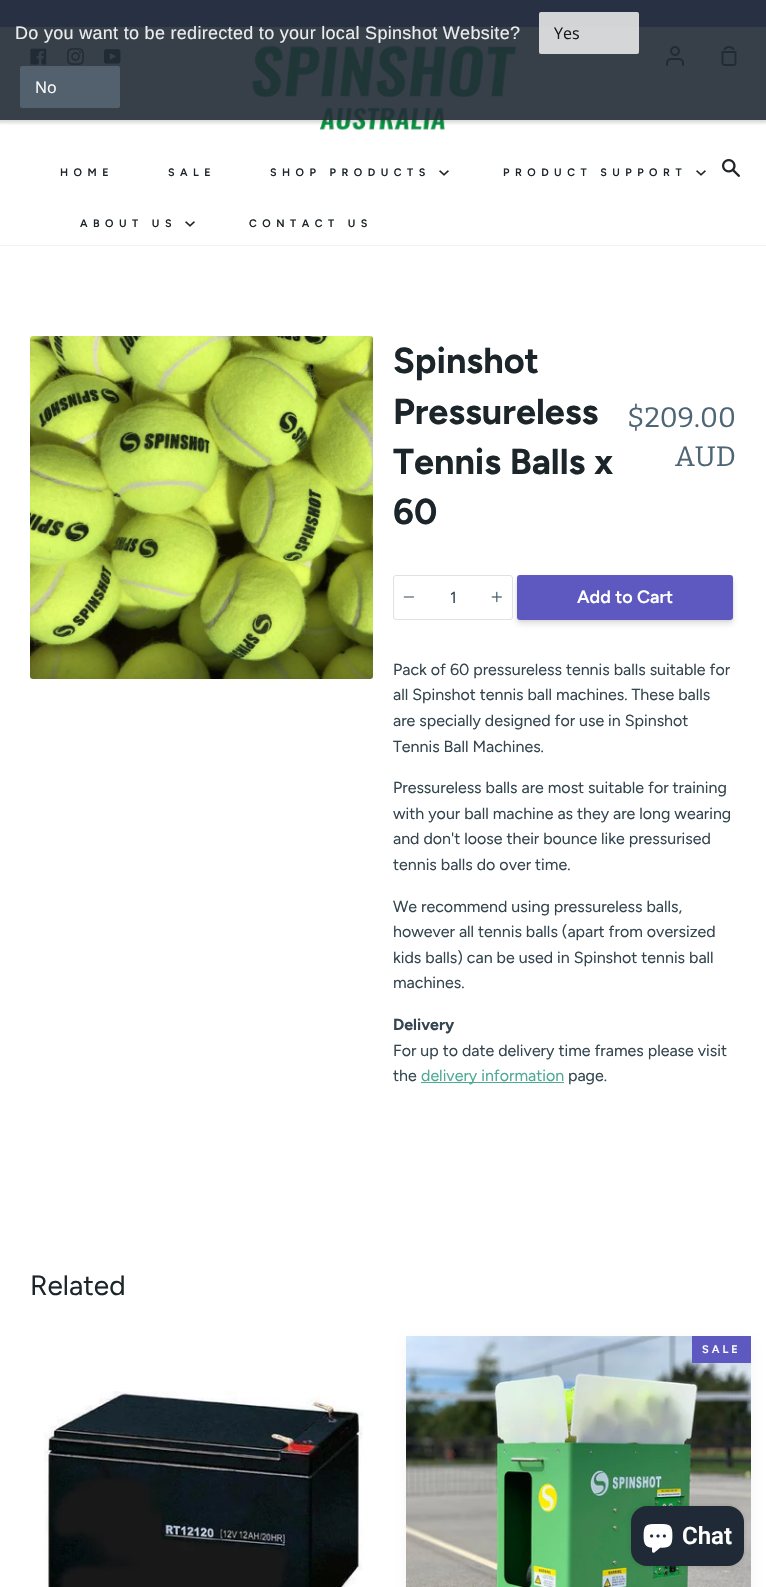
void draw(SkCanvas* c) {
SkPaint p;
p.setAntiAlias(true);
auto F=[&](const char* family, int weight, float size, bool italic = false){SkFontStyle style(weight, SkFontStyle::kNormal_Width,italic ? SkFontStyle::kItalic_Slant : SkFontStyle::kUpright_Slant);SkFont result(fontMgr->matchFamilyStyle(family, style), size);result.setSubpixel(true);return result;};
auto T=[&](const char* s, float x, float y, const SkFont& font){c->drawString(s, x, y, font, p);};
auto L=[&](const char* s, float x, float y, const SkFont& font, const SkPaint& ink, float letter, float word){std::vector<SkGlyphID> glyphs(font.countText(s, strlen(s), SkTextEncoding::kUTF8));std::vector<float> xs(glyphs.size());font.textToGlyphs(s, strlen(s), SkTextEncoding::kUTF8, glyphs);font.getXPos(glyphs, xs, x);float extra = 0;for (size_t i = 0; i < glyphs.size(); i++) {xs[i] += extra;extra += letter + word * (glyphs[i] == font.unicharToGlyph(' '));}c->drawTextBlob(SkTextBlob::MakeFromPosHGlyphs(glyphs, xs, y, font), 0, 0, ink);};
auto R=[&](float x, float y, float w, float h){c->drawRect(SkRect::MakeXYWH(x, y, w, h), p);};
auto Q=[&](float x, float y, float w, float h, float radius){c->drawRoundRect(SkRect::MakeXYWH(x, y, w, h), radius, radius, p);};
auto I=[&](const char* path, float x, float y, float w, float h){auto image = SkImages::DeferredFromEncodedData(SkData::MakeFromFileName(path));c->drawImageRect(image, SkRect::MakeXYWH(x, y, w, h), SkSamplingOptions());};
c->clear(0xffffffff);
p.setColor(0xff5e59c0);
R(0,0,766,27);
I("1.png",30,48,17,17);
I("2.png",67,48,17,17);
I("3.png",104,49,17,15);
I("4.png",252,45,265,85);
I("5.png",666,46,18,20);
I("6.png",721,46,16,20);
c->save();
c->clipRect(SkRect::MakeXYWH(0,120,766,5));
p.setColor(0x24000000);
p.setMaskFilter(SkMaskFilter::MakeBlur(kNormal_SkBlurStyle, 1.5));
c->drawRect(SkRect::MakeXYWH(-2,-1,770,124),p);
p.setMaskFilter(nullptr);
c->restore();
p.setColor(0xe6212b35);
R(0,0,766,120);
auto f1 = F("Liberation Sans",400,18);
p.setColor(0xffebeced);
L("Do you want to be redirected to your local Spinshot Website?",15,39,f1,p,.3,0);
p.setColor(0xe6e5e5e5);
Q(539,12,100,42,2);
auto f2 = F("Open Sans",400,16);
p.setColor(0xff1a1a1a);
T("Yes",554,39,f2);
p.setColor(0xff53606d);
Q(20,66,100,42,2);
p.setColor(0xffffffff);
T("No",35,93,f2);
p.setColor(0xfff2f2f2);
R(0,245,766,1);
auto f3 = F("Figtree",600,10.75);
p.setColor(0xff1c252a);
L("HOME",60,176,f3,p,5.5,0);
L("SALE",168,176,f3,p,5.5,0);
L("SHOP PRODUCTS",270,176,f3,p,5.5,0);
I("7.png",439,170,10,6);
L("PRODUCT SUPPORT",503,176,f3,p,5.5,0);
I("7.png",696,170,10,6);
L("ABOUT US",80,227,f3,p,5.5,0);
I("7.png",185,221,10,6);
L("CONTACT US",249,227,f3,p,5.5,0);
I("8.png",722,159,18,18);
I("9.png",30,336,343,343);
auto f4 = F("Figtree",700,36);
T("Spinshot",393,373,f4);
T("Pressureless",393,424,f4);
T("Tennis Balls x",393,474,f4);
T("60",393,524,f4);
auto f5 = F("Bitter",400,28);
p.setColor(0xff4d6574);
T("$209.00",627,427,f5);
T("AUD",675,466,f5);
p.setColor(0x14080713);
p.setMaskFilter(SkMaskFilter::MakeBlur(kNormal_SkBlurStyle, 1.5));
c->drawRoundRect(SkRect::MakeXYWH(517,576,216,45),3,3,p);
p.setMaskFilter(nullptr);
p.setColor(0x1f080713);
p.setMaskFilter(SkMaskFilter::MakeBlur(kNormal_SkBlurStyle, 3));
c->drawRoundRect(SkRect::MakeXYWH(517,579,216,45),3,3,p);
p.setMaskFilter(nullptr);
p.setStroke(true);
p.setStrokeWidth(1);
p.setColor(0xffdfe1e3);
c->drawRoundRect(SkRect::MakeXYWH(393.5,575.5,119,44),2.5,2.5,p);
I("10.png",403,596,12,2);
auto f6 = F("Figtree",400,16);
p.setStroke(false);
p.setColor(0xff34454f);
T("1",450,603,f6);
I("11.png",491,591,11,12);
p.setColor(0xff5e59c0);
Q(517,575,216,45,3);
auto f7 = F("Figtree",600,18);
p.setColor(0xffffffff);
T("Add to Cart",577,603,f7);
p.setColor(0xff34454f);
T("Pack of 60 pressureless tennis balls suitable for",393,675,f6);
T("all Spinshot tennis ball machines. These balls",393,700,f6);
T("are specially designed for use in Spinshot",393,726,f6);
T("Tennis Ball Machines.",393,752,f6);
T("Pressureless balls are most suitable for training",393,793,f6);
T("with your ball machine as they are long wearing",393,819,f6);
T("and don't loose their bounce like pressurised",393,844,f6);
T("tennis balls do over time.",393,870,f6);
T("We recommend using pressureless balls,",393,912,f6);
T("however all tennis balls (apart from oversized",393,937,f6);
T("kids balls) can be used in Spinshot tennis ball",393,963,f6);
T("machines.",393,988,f6);
auto f8 = F("Figtree",700,16);
T("Delivery",393,1030,f8);
T("For up to date delivery time frames please visit",393,1056,f6);
T("the",393,1081,f6);
p.setColor(0xff4ea994);
R(421,1082,143,1);
T("delivery information",421,1081,f6);
p.setColor(0xff34454f);
T("page.",568,1081,f6);
auto f9 = F("Figtree",400,28);
p.setColor(0xff1c252a);
T("Related",30,1295,f9);
p.setColor(0x14808080);
p.setMaskFilter(SkMaskFilter::MakeBlur(kNormal_SkBlurStyle, 7));
c->drawRect(SkRect::MakeXYWH(406,1340,345,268),p);
p.setMaskFilter(nullptr);
I("12.png",406,1336,345,251);
p.setColor(0xff5e59c0);
R(692,1336,59,27);
auto f10 = F("Figtree",600,11);
p.setColor(0xffffffff);
L("SALE",702,1353,f10,p,3,0);
I("13.png",44,1391,320,196);
p.setColor(0x26000000);
p.setMaskFilter(SkMaskFilter::MakeBlur(kNormal_SkBlurStyle, 2.5));
c->drawRoundRect(SkRect::MakeXYWH(631,1506,113,60),16,16,p);
p.setMaskFilter(nullptr);
p.setColor(0xff202a36);
Q(631,1506,113,60,16);
I("14.png",643,1524,30,29);
auto f11 = F("Roboto",600,24);
p.setColor(0xffffffff);
T("Chat",682,1544,f11);
}
